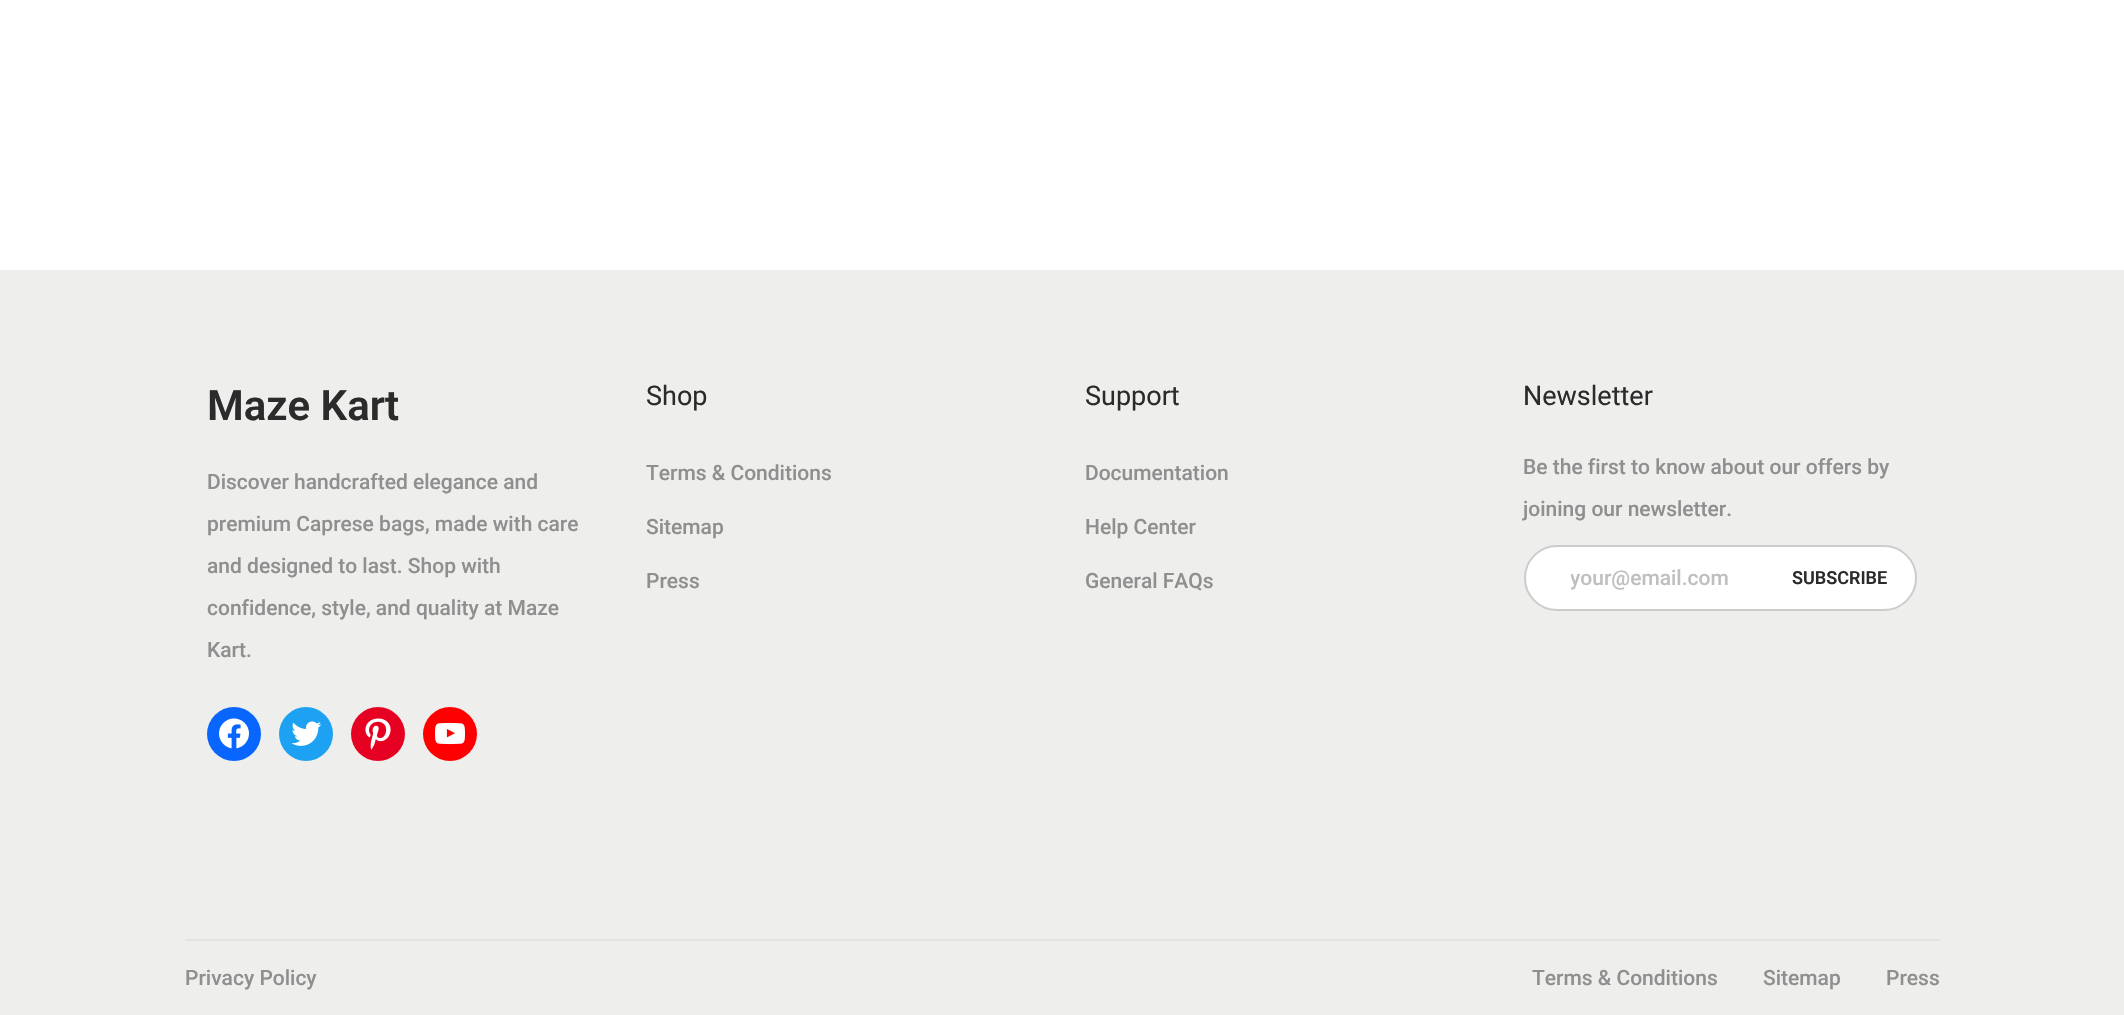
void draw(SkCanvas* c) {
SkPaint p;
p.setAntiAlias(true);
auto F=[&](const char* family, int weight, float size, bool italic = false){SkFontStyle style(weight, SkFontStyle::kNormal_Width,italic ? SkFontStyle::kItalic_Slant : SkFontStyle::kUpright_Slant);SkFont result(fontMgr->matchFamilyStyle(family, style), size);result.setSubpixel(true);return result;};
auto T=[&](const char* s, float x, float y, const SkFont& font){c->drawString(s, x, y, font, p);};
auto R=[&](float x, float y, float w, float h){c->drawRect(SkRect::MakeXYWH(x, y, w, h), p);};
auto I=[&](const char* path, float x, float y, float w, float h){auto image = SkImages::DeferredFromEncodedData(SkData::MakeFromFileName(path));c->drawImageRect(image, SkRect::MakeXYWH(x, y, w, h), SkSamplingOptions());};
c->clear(0xffffffff);
p.setColor(0xffeeeeec);
R(0,270,2124,745);
auto f1 = F("Roboto",600,42);
p.setColor(0xff2b2b2b);
T("Maze Kart",207,420,f1);
auto f2 = F("Roboto",500,21);
p.setColor(0xff8f8f8f);
T("Discover handcrafted elegance and",207,489,f2);
T("premium Caprese bags, made with care",207,531,f2);
T("and designed to last. Shop with",207,573,f2);
T("confidence, style, and quality at Maze",207,615,f2);
T("Kart.",207,657,f2);
p.setColor(0xff0866ff);
c->drawCircle(234,734,27,p);
I("1.png",219,718,30,31);
p.setColor(0xff1da1f2);
c->drawCircle(306,734,27,p);
I("2.png",291,721,31,25);
p.setColor(0xffe60122);
c->drawCircle(378,734,27,p);
I("3.png",365,718,26,32);
p.setColor(0xffff0000);
c->drawCircle(450,734,27,p);
I("4.png",435,722,30,23);
auto f3 = F("Roboto",400,27);
p.setColor(0xff2b2b2b);
T("Shop",646,405,f3);
p.setColor(0xff8f8f8f);
T("Terms & Conditions",646,480,f2);
T("Sitemap",646,534,f2);
T("Press",646,588,f2);
p.setColor(0xff2b2b2b);
T("Support",1085,405,f3);
p.setColor(0xff8f8f8f);
T("Documentation",1085,480,f2);
T("Help Center",1085,534,f2);
T("General FAQs",1085,588,f2);
p.setColor(0xff2b2b2b);
T("Newsletter",1523,405,f3);
p.setColor(0xff8f8f8f);
T("Be the first to know about our offers by",1523,474,f2);
T("joining our newsletter.",1523,516,f2);
p.setColor(0xffffffff);
c->drawRoundRect(SkRect::MakeXYWH(1525,546,391,64),32,32,p);
p.setStroke(true);
p.setStrokeWidth(2);
p.setColor(0xffcccccc);
c->drawRoundRect(SkRect::MakeXYWH(1525,546,391,64),32,32,p);
c->save();
c->clipRect(SkRect::MakeXYWH(1571,566,195,24));
p.setStroke(false);
p.setColor(0xffbfbfbf);
T("your@email.com",1570,585,f2);
c->restore();
auto f4 = F("Roboto",600,18);
p.setColor(0xff2b2b2b);
T("SUBSCRIBE",1792,584,f4);
p.setColor(0xffe3e3e3);
R(185,939,1755,2);
p.setColor(0xff8f8f8f);
T("Privacy Policy",185,985,f2);
T("Terms & Conditions",1532,985,f2);
T("Sitemap",1763,985,f2);
T("Press",1886,985,f2);
}
